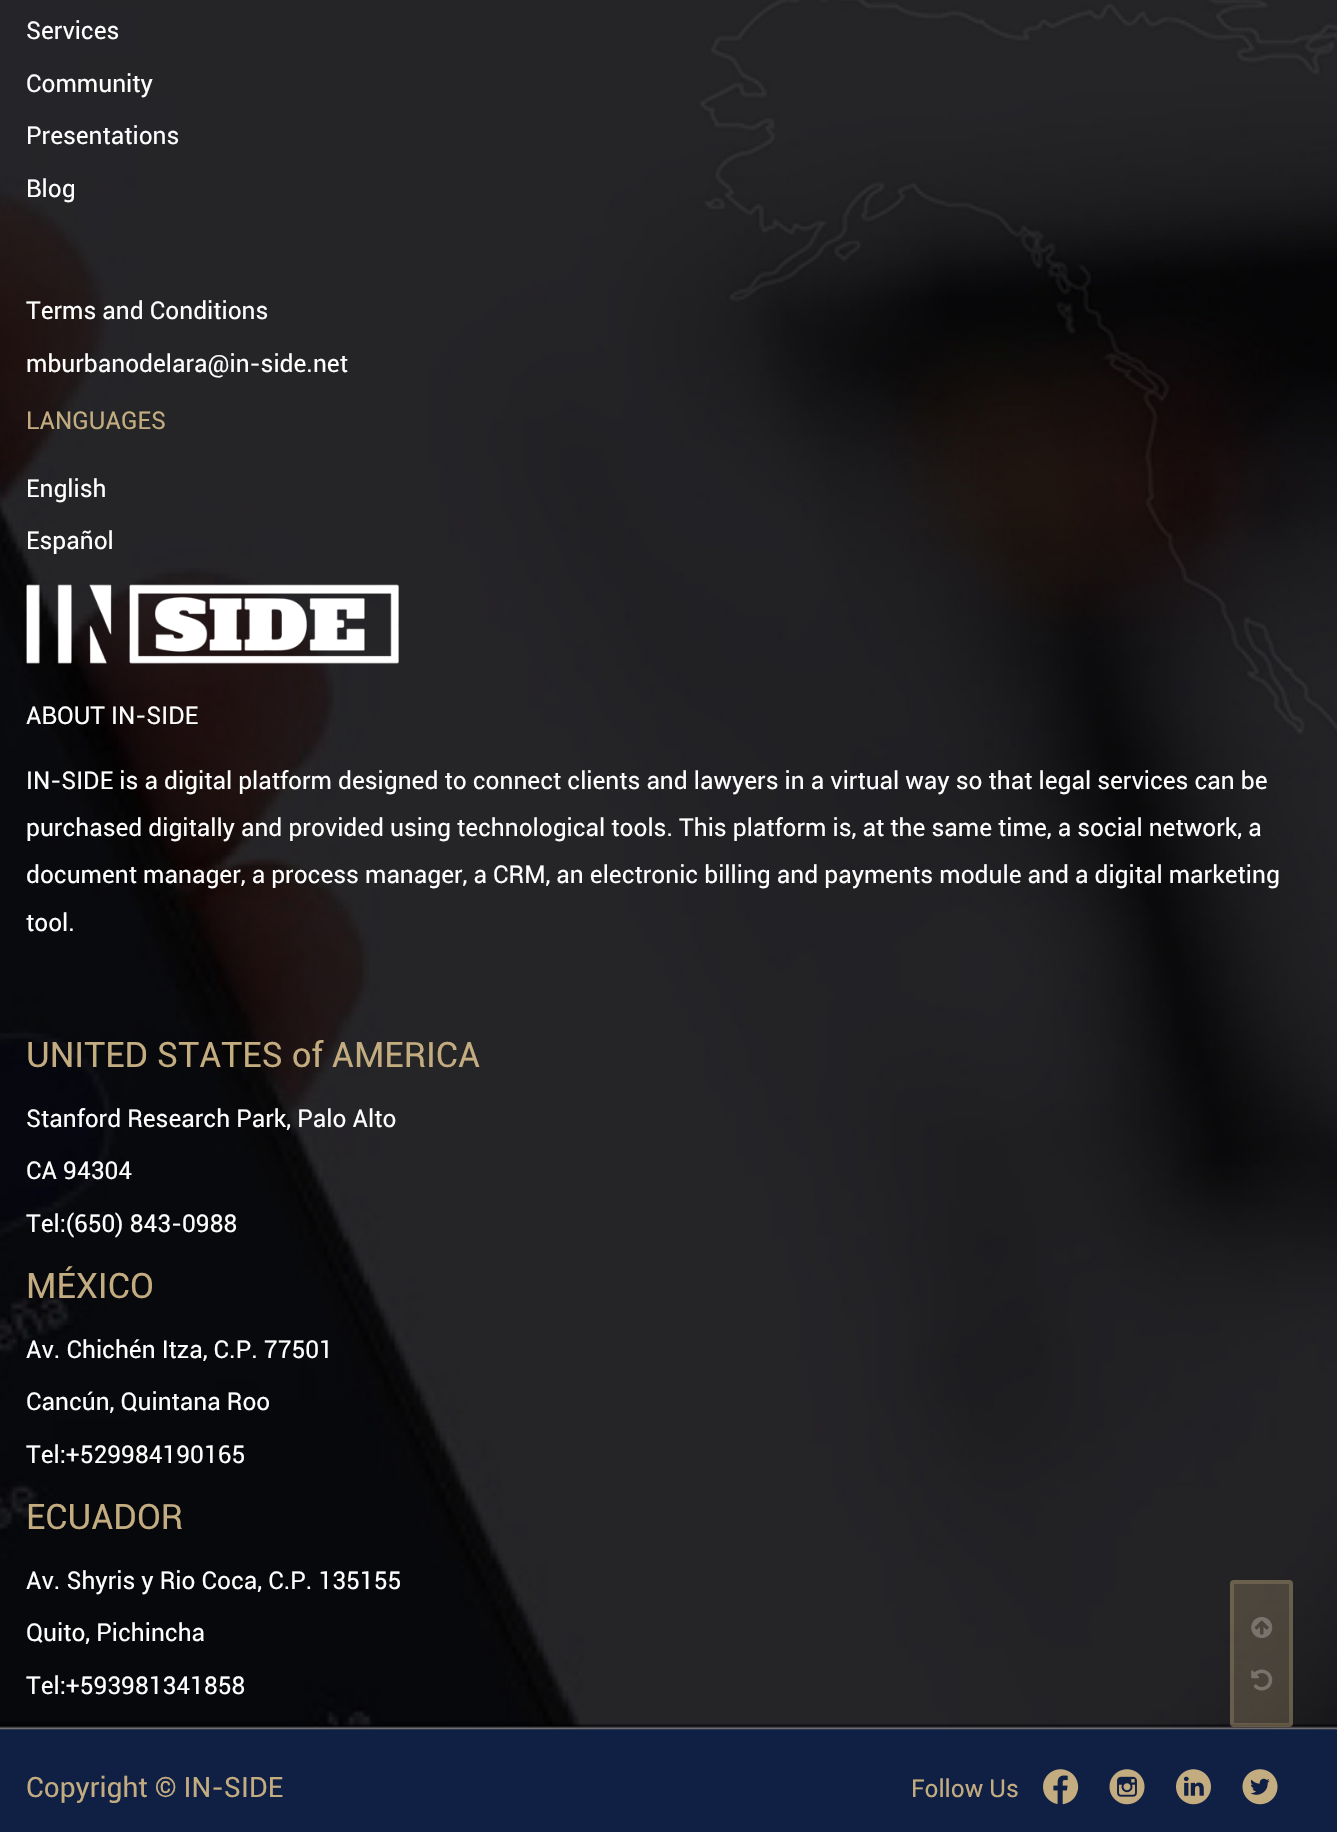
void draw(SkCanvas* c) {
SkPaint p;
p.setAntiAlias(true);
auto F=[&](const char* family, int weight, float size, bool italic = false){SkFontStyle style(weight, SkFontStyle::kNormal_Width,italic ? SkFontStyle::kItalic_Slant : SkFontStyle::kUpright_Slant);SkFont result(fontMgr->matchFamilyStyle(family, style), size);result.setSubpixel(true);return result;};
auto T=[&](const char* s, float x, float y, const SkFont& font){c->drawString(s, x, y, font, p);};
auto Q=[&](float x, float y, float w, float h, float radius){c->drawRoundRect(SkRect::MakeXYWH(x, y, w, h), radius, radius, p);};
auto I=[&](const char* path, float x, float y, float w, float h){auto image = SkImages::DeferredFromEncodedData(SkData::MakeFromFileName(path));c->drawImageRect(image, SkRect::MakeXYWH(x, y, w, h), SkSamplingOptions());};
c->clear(0xff102044);
I("1.png",0,0,1337,1730);
auto f1 = F("Roboto",400,24.5);
p.setColor(0xffffffff);
T("Services",26,39,f1);
T("Community",26,92,f1);
T("Presentations",26,144,f1);
T("Blog",26,197,f1);
T("Terms and Conditions",26,319,f1);
T("mburbanodelara@in-side.net",26,372,f1);
p.setColor(0xffc4ac81);
T("LANGUAGES",26,429,f1);
p.setColor(0xffffffff);
T("English",26,497,f1);
T("Español",26,549,f1);
I("2.png",26,584,373,80);
T("ABOUT IN-SIDE",26,724,f1);
T("IN-SIDE is a digital platform designed to connect clients and lawyers in a virtual way so that legal services can be",26,789,f1);
T("purchased digitally and provided using technological tools. This platform is, at the same time, a social network, a",26,836,f1);
T("document manager, a process manager, a CRM, an electronic billing and payments module and a digital marketing",26,883,f1);
T("tool.",26,931,f1);
auto f2 = F("Roboto",400,35);
p.setColor(0xffc4ac81);
T("UNITED STATES of AMERICA",26,1067,f2);
p.setColor(0xffffffff);
T("Stanford Research Park, Palo Alto",26,1127,f1);
T("CA 94304",26,1179,f1);
T("Tel:(650) 843-0988",26,1232,f1);
p.setColor(0xffc4ac81);
T("MÉXICO",26,1298,f2);
p.setColor(0xffffffff);
T("Av. Chichén Itza, C.P. 77501",26,1358,f1);
T("Cancún, Quintana Roo",26,1410,f1);
T("Tel:+529984190165",26,1463,f1);
p.setColor(0xffc4ac81);
T("ECUADOR",26,1529,f2);
p.setColor(0xffffffff);
T("Av. Shyris y Rio Coca, C.P. 135155",26,1589,f1);
T("Quito, Pichincha",26,1641,f1);
T("Tel:+593981341858",26,1694,f1);
p.setColor(0x40c4ac81);
Q(1230,1580,63,147,4);
p.setStroke(true);
p.setStrokeWidth(4);
c->drawRoundRect(SkRect::MakeXYWH(1232,1582,59,143),2,2,p);
I("3.png",1251,1617,22,21);
I("4.png",1251,1669,22,22);
auto f3 = F("Roboto",400,28);
p.setStroke(false);
p.setColor(0xffc4ac81);
T("Copyright © IN-SIDE",26,1797,f3);
T("Follow Us",911,1797,f1);
I("5.png",1043,1769,36,36);
I("6.png",1109,1769,36,36);
I("7.png",1176,1769,35,36);
I("8.png",1242,1769,36,36);
}
